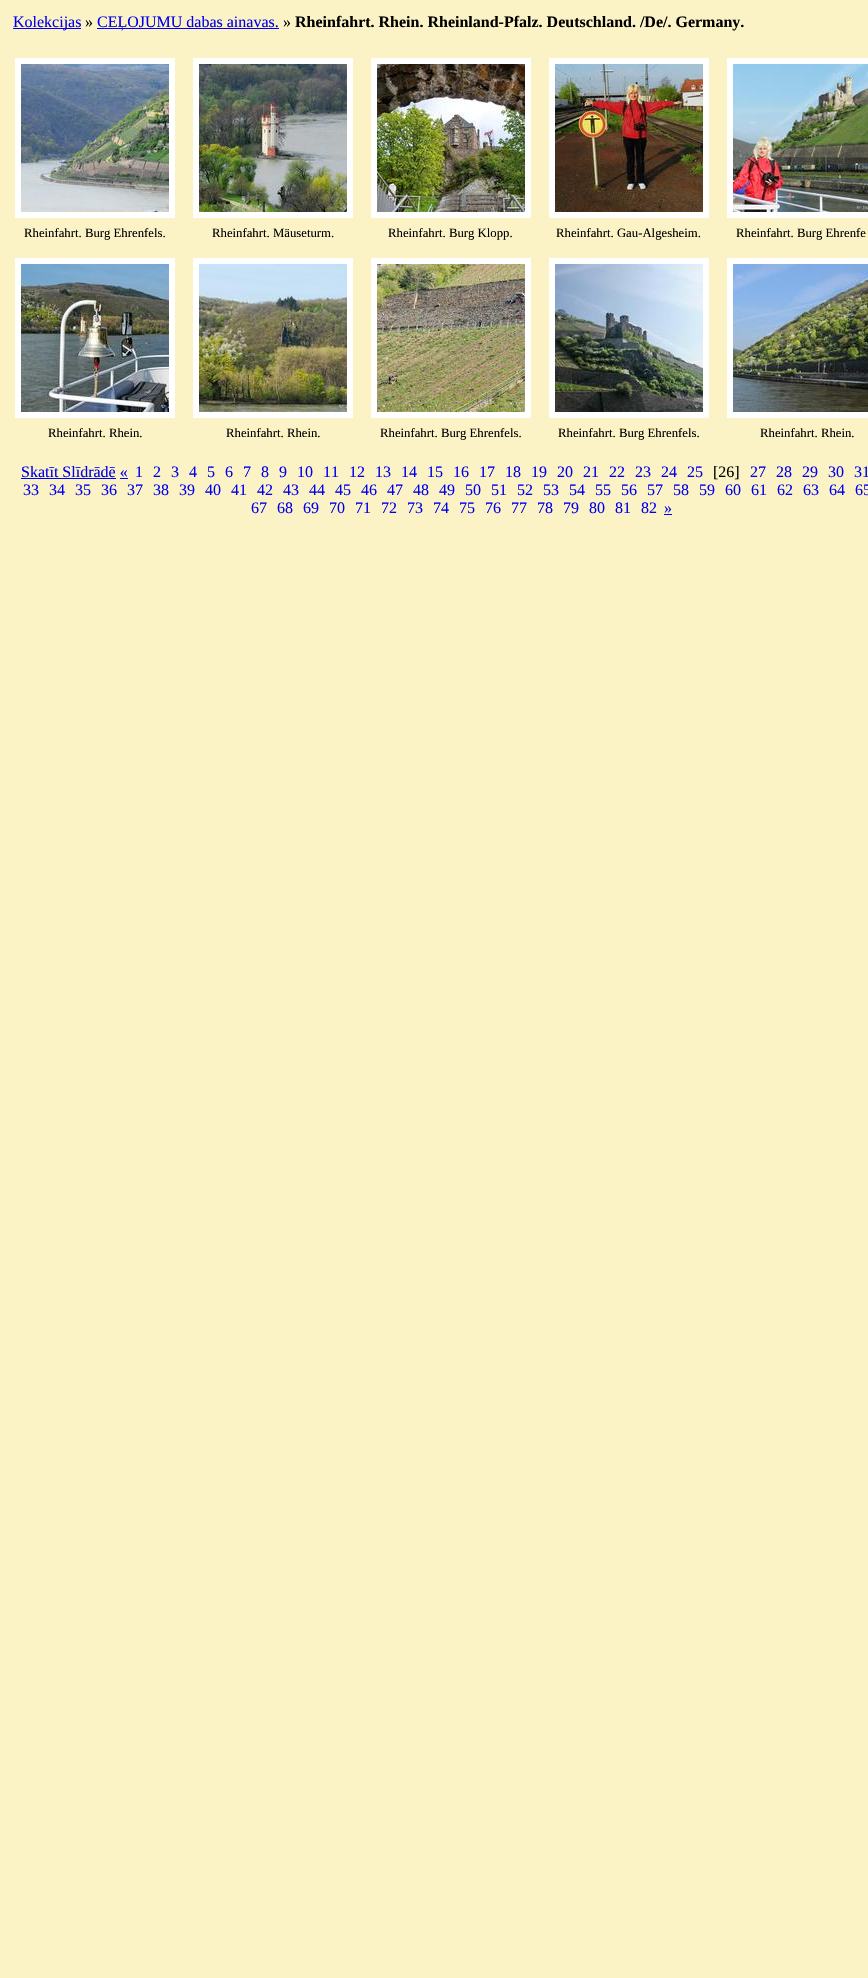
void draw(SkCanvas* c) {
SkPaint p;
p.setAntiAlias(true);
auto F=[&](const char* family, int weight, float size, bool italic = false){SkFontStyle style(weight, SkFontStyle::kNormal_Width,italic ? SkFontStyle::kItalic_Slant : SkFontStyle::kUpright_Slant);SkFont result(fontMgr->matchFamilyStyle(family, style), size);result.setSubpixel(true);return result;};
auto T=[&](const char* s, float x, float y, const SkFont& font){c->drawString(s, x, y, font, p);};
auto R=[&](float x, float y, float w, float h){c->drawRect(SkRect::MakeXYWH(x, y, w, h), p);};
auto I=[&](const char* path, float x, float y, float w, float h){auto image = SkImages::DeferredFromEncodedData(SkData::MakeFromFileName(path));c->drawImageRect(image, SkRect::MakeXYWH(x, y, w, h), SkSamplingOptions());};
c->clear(0xfffbf3c5);
p.setColor(0xff0000ee);
R(13,28,68,1);
auto f1 = F("Liberation Serif",400,16);
T("Kolekcijas",13,27,f1);
p.setColor(0xff000000);
T("»",85,27,f1);
p.setColor(0xff0000ee);
R(97,28,182,1);
T("CEĻOJUMU dabas ainavas.",97,27,f1);
p.setColor(0xff000000);
T("»",283,27,f1);
auto f2 = F("Liberation Serif",700,16);
T("Rheinfahrt. Rhein. Rheinland-Pfalz. Deutschland. /De/. Germany.",295,27,f2);
p.setColor(0xffffffff);
R(15,58,160,160);
I("1.png",21,64,148,148);
auto f3 = F("Liberation Serif",400,12.75);
p.setColor(0xff000000);
T("Rheinfahrt. Burg Ehrenfels.",24,237,f3);
p.setColor(0xffffffff);
R(193,58,160,160);
I("2.png",199,64,148,148);
p.setColor(0xff000000);
T("Rheinfahrt. Mäuseturm.",212,237,f3);
p.setColor(0xffffffff);
R(371,58,160,160);
I("3.png",377,64,148,148);
p.setColor(0xff000000);
T("Rheinfahrt. Burg Klopp.",388,237,f3);
p.setColor(0xffffffff);
R(549,58,160,160);
I("4.png",555,64,148,148);
p.setColor(0xff000000);
T("Rheinfahrt. Gau-Algesheim.",556,237,f3);
p.setColor(0xffffffff);
R(727,58,141,160);
I("5.png",733,64,135,148);
p.setColor(0xff000000);
T("Rheinfahrt. Burg Ehrenfe",736,237,f3);
p.setColor(0xffffffff);
R(15,258,160,160);
I("6.png",21,264,148,148);
p.setColor(0xff000000);
T("Rheinfahrt. Rhein.",48,437,f3);
p.setColor(0xffffffff);
R(193,258,160,160);
I("7.png",199,264,148,148);
p.setColor(0xff000000);
T("Rheinfahrt. Rhein.",226,437,f3);
p.setColor(0xffffffff);
R(371,258,160,160);
I("8.png",377,264,148,148);
p.setColor(0xff000000);
T("Rheinfahrt. Burg Ehrenfels.",380,437,f3);
p.setColor(0xffffffff);
R(549,258,160,160);
I("9.png",555,264,148,148);
p.setColor(0xff000000);
T("Rheinfahrt. Burg Ehrenfels.",558,437,f3);
p.setColor(0xffffffff);
R(727,258,141,160);
I("10.png",733,264,135,148);
p.setColor(0xff000000);
T("Rheinfahrt. Rhein.",760,437,f3);
p.setColor(0xff0000ee);
T("Skatīt Slīdrādē «",21,477,f1);
R(21,478,95,1);
T("1",135,477,f1);
T("2",153,477,f1);
T("3",171,477,f1);
T("4",189,477,f1);
T("5",207,477,f1);
T("6",225,477,f1);
T("7",243,477,f1);
T("8",261,477,f1);
T("9",279,477,f1);
T("10",297,477,f1);
T("11",323,477,f1);
T("12",349,477,f1);
T("13",375,477,f1);
T("14",401,477,f1);
T("15",427,477,f1);
T("16",453,477,f1);
T("17",479,477,f1);
T("18",505,477,f1);
T("19",531,477,f1);
T("20",557,477,f1);
T("21",583,477,f1);
T("22",609,477,f1);
T("23",635,477,f1);
T("24",661,477,f1);
T("25",687,477,f1);
p.setColor(0xff000000);
T("[26]",713,477,f1);
p.setColor(0xff0000ee);
T("27",750,477,f1);
T("28",776,477,f1);
T("29",802,477,f1);
T("30",828,477,f1);
T("31",854,477,f1);
R(120,478,8,1);
T("33",23,495,f1);
T("34",49,495,f1);
T("35",75,495,f1);
T("36",101,495,f1);
T("37",127,495,f1);
T("38",153,495,f1);
T("39",179,495,f1);
T("40",205,495,f1);
T("41",231,495,f1);
T("42",257,495,f1);
T("43",283,495,f1);
T("44",309,495,f1);
T("45",335,495,f1);
T("46",361,495,f1);
T("47",387,495,f1);
T("48",413,495,f1);
T("49",439,495,f1);
T("50",465,495,f1);
T("51",491,495,f1);
T("52",517,495,f1);
T("53",543,495,f1);
T("54",569,495,f1);
T("55",595,495,f1);
T("56",621,495,f1);
T("57",647,495,f1);
T("58",673,495,f1);
T("59",699,495,f1);
T("60",725,495,f1);
T("61",751,495,f1);
T("62",777,495,f1);
T("63",803,495,f1);
T("64",829,495,f1);
T("65",855,495,f1);
T("67",251,513,f1);
T("68",277,513,f1);
T("69",303,513,f1);
T("70",329,513,f1);
T("71",355,513,f1);
T("72",381,513,f1);
T("73",407,513,f1);
T("74",433,513,f1);
T("75",459,513,f1);
T("76",485,513,f1);
T("77",511,513,f1);
T("78",537,513,f1);
T("79",563,513,f1);
T("80",589,513,f1);
T("81",615,513,f1);
T("82",641,513,f1);
T("»",664,513,f1);
R(664,514,8,1);
}
